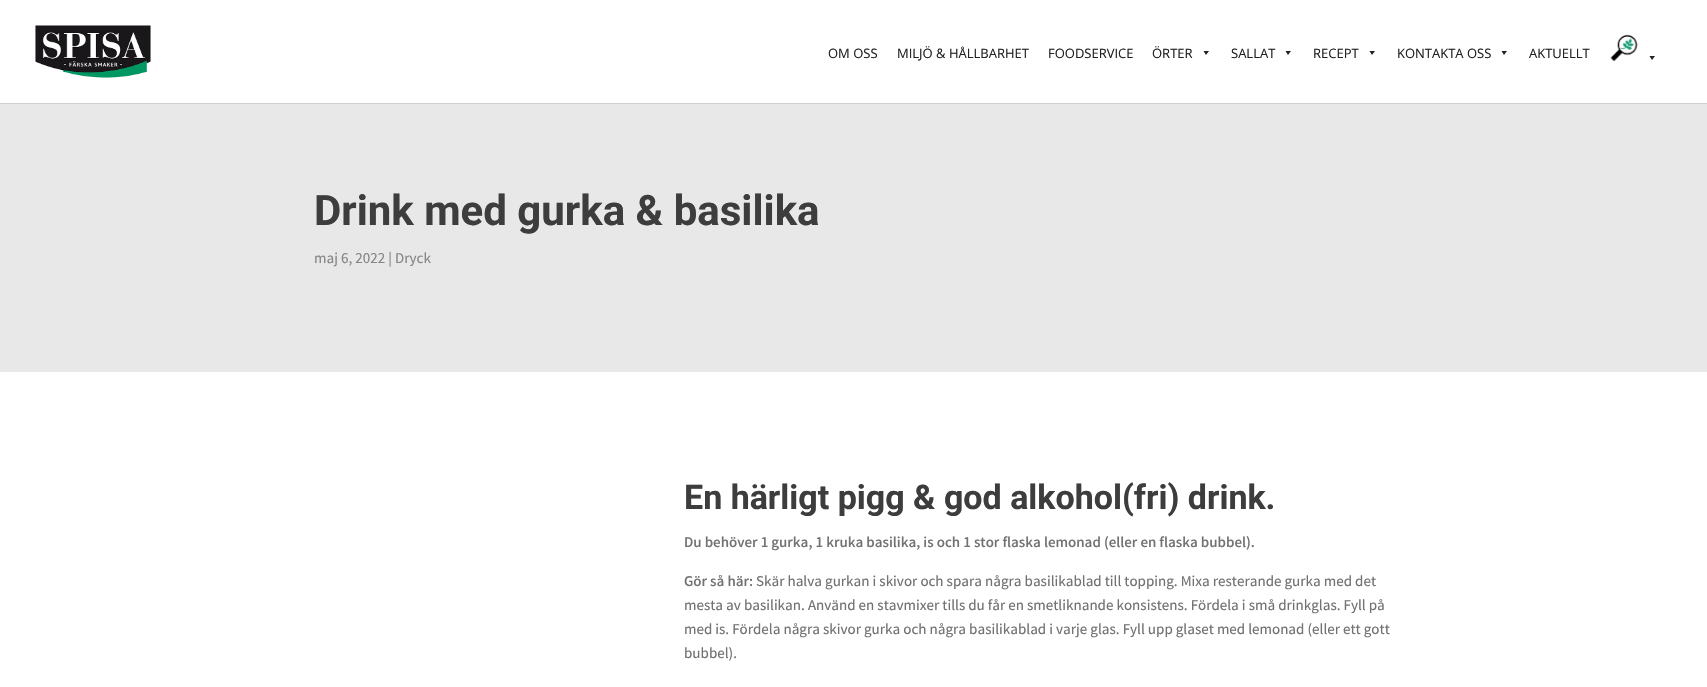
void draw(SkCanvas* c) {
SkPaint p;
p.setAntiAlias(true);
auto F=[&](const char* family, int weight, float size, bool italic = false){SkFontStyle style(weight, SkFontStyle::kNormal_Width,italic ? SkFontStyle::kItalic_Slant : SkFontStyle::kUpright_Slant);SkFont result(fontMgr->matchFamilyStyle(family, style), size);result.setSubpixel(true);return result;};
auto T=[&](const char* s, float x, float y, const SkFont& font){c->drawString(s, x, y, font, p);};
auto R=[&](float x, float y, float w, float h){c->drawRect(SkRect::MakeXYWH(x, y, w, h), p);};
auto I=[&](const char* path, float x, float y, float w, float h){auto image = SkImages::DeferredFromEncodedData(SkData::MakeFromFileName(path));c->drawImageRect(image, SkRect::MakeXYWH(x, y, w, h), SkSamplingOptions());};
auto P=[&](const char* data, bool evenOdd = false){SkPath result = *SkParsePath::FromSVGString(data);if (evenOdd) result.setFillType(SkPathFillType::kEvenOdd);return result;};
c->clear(0xffffffff);
p.setColor(0xffd1d1d1);
R(0,103,1707,1);
I("1.png",35,25,116,53);
auto f1 = F("Open Sans",400,13);
p.setColor(0xff222222);
T("OM OSS",828,58,f1);
T("MILJÖ & HÅLLBARHET",897,58,f1);
T("FOODSERVICE",1048,58,f1);
T("ÖRTER",1152,58,f1);
c->drawPath(P("M1209 51l-3 4l-2.5-4z"),p);
T("SALLAT",1231,58,f1);
c->drawPath(P("M1291 51l-3 4l-2.5-4z"),p);
T("RECEPT",1313,58,f1);
c->drawPath(P("M1375 51l-3 4l-2.5-4z"),p);
T("KONTAKTA OSS",1397,58,f1);
c->drawPath(P("M1507 51l-3 4l-2.5-4z"),p);
T("AKTUELLT",1529,58,f1);
I("2.png",1610,34,28,28);
c->drawPath(P("M1655 56l-3 4l-2.5-4z"),p);
p.setColor(0xffe8e8e8);
R(0,104,1707,268);
auto f2 = F("Roboto",700,42);
p.setColor(0xff3d3d3d);
T("Drink med gurka & basilika",314,225,f2);
auto f3 = F("Varta",300,15);
p.setColor(0xff878787);
T("maj 6, 2022 | Dryck",314,263,f3);
auto f4 = F("Roboto",700,34);
p.setColor(0xff3d3d3d);
T("En härligt pigg & god alkohol(fri) drink.",684,509,f4);
auto f5 = F("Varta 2",300,15);
p.setColor(0xff727272);
T("Du behöver 1 gurka, 1 kruka basilika, is och 1 stor flaska lemonad (eller en flaska bubbel).",684,547,f5);
T("Gör så här:",684,586,f5);
T("Skär halva gurkan i skivor och spara några basilikablad till topping. Mixa resterande gurka med det",756,586,f3);
T("mesta av basilikan. Använd en stavmixer tills du får en smetliknande konsistens. Fördela i små drinkglas. Fyll på",684,610,f3);
T("med is. Fördela några skivor gurka och några basilikablad i varje glas. Fyll upp glaset med lemonad (eller ett gott",684,634,f3);
T("bubbel).",684,658,f3);
}
